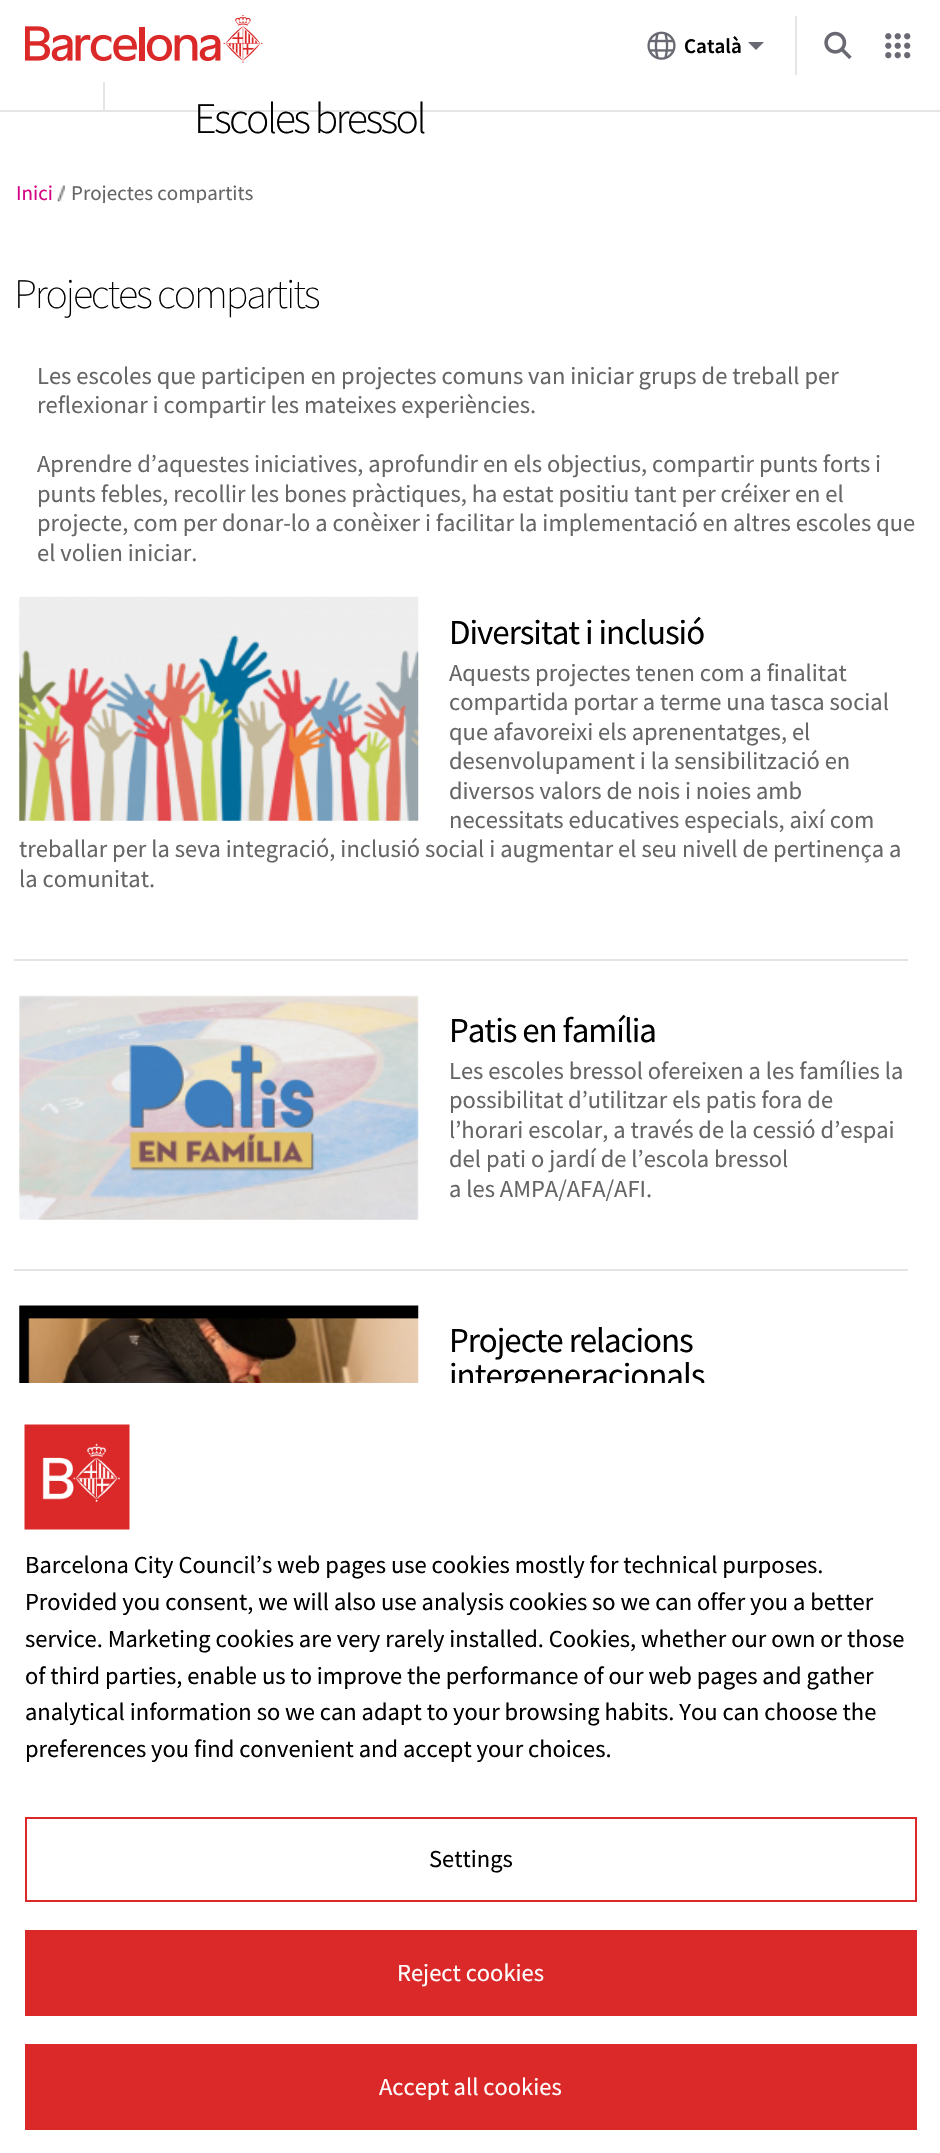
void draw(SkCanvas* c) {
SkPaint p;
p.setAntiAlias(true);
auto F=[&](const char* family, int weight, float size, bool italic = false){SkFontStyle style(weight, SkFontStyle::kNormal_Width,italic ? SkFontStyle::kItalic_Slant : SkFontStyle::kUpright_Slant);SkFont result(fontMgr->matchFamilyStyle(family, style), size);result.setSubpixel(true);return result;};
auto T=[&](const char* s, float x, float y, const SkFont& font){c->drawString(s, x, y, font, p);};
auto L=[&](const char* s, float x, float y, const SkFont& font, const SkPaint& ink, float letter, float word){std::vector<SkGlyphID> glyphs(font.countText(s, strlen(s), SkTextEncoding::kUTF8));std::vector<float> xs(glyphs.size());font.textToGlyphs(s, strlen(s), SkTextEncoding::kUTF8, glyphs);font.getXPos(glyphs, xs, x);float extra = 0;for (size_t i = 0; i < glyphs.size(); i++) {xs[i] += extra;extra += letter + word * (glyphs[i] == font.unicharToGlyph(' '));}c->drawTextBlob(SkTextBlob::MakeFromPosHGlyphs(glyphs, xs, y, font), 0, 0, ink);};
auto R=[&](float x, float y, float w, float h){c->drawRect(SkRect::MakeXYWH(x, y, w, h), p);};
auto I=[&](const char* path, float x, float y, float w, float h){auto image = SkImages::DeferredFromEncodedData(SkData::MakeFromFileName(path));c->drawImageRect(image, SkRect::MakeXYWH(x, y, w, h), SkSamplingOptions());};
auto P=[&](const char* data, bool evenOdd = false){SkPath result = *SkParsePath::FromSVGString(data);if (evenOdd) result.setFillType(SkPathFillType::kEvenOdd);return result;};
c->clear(0xffffffff);
I("1.png",25,15,238,48);
p.setColor(0xffe5e5e5);
R(795,16,2,59);
I("2.png",647,31,29,29);
auto f1 = F("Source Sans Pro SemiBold",600,21);
p.setColor(0xff000000);
T("Català",684,53,f1);
p.setColor(0xff696973);
c->drawPath(P("M748 42l8 8l8-8z"),p);
I("3.png",824,31,28,28);
I("4.png",885,33,26,26);
p.setColor(0xffe5e5e5);
R(103,82,2,28);
R(0,110,940,2);
auto f2 = F("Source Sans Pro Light",300,43.75);
p.setColor(0xff000000);
L("Escoles bressol",194,133,f2,p,-2.6,0);
auto f3 = F("Source Sans Pro",400,21);
p.setColor(0xffd50283);
T("Inici",16,200,f3);
I("5.png",57,185,8,17);
c->save();
c->clipRect(SkRect::MakeXYWH(14,182,914,21));
p.setColor(0xff666666);
T("Projectes compartits",71,200,f3);
c->restore();
auto f4 = F("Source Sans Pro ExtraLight",200,42);
p.setColor(0xff000000);
L("Projectes compartits",14,308,f4,p,-2.1,0);
auto f5 = F("Source Sans Pro",400,24.5);
p.setColor(0xff666666);
T("Les escoles que participen en projectes comuns van iniciar grups de treball per",37,384,f5);
T("reflexionar i compartir les mateixes experiències.",37,413,f5);
T("Aprendre d’aquestes iniciatives, aprofundir en els objectius, compartir punts forts i",37,472,f5);
T("punts febles, recollir les bones pràctiques, ha estat positiu tant per créixer en el",37,502,f5);
T("projecte, com per donar-lo a conèixer i facilitar la implementació en altres escoles que",37,531,f5);
T("el volien iniciar.",37,561,f5);
p.setColor(0xffe4e4e4);
R(14,959,894,2);
I("6.png",19,596,400,225);
auto f6 = F("Source Sans Pro",400,35);
p.setColor(0xff000000);
L("Diversitat i inclusió",449,644,f6,p,-1.05,0);
p.setColor(0xff666666);
T("Aquests projectes tenen com a finalitat",449,681,f5);
T("compartida portar a terme una tasca social",449,710,f5);
T("que afavoreixi els aprenentatges, el",449,740,f5);
T("desenvolupament i la sensibilització en",449,769,f5);
T("diversos valors de nois i noies amb",449,799,f5);
T("necessitats educatives especials, així com",449,828,f5);
T("treballar per la seva integració, inclusió social i augmentar el seu nivell de pertinença a",19,857,f5);
T("la comunitat.",19,887,f5);
p.setColor(0xffe4e4e4);
R(14,1269,894,2);
I("7.png",19,995,400,225);
p.setColor(0xff000000);
L("Patis en família",449,1042,f6,p,-1.05,0);
p.setColor(0xff666666);
T("Les escoles bressol ofereixen a les famílies la",449,1079,f5);
T("possibilitat d’utilitzar els patis fora de",449,1108,f5);
T("l’horari escolar, a través de la cessió d’espai",449,1138,f5);
T("del pati o jardí de l’escola bressol",449,1167,f5);
T("a les AMPA/AFA/AFI.",449,1197,f5);
I("8.png",19,1305,400,78);
p.setColor(0xff000000);
L("Projecte relacions",449,1352,f6,p,-1.05,0);
L("intergeneracionals",449,1387,f6,p,-1.05,0);
p.setColor(0xffffffff);
R(451,1383,254,12);
I("9.png",24,1424,106,106);
p.setColor(0xff000000);
T("Barcelona City Council’s web pages use cookies mostly for technical purposes.",25,1573,f5);
T("Provided you consent, we will also use analysis cookies so we can offer you a better",25,1610,f5);
T("service. Marketing cookies are very rarely installed. Cookies, whether our own or those",25,1647,f5);
T("of third parties, enable us to improve the performance of our web pages and gather",25,1684,f5);
T("analytical information so we can adapt to your browsing habits. You can choose the",25,1720,f5);
T("preferences you find convenient and accept your choices.",25,1757,f5);
p.setStroke(true);
p.setStrokeWidth(2);
p.setColor(0xffdb2828);
c->drawRect(SkRect::MakeXYWH(26,1818,890,83),p);
p.setStroke(false);
p.setColor(0xff000000);
T("Settings",429,1867,f5);
p.setColor(0xffdb2828);
R(25,1930,892,86);
p.setColor(0xffffffff);
T("Reject cookies",397,1981,f5);
p.setColor(0xffdb2828);
R(25,2044,892,86);
p.setColor(0xffffffff);
T("Accept all cookies",379,2095,f5);
}
